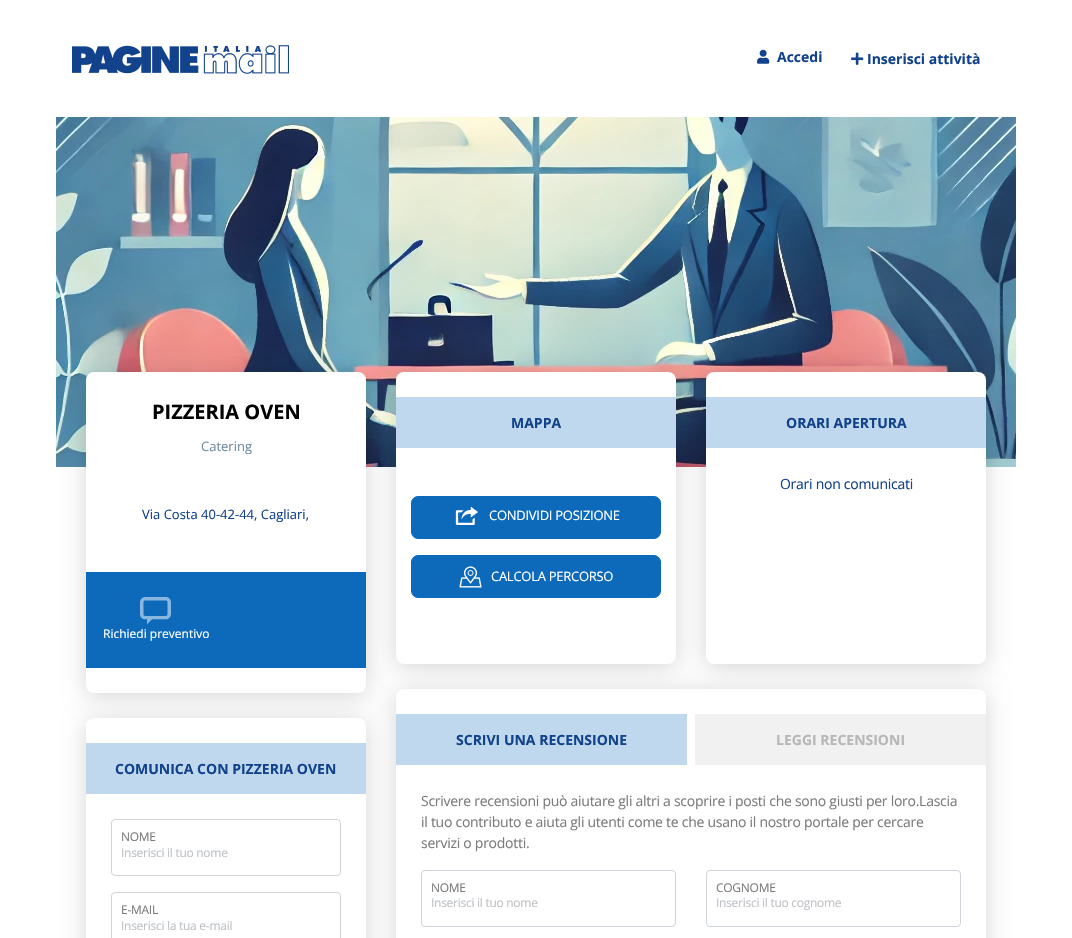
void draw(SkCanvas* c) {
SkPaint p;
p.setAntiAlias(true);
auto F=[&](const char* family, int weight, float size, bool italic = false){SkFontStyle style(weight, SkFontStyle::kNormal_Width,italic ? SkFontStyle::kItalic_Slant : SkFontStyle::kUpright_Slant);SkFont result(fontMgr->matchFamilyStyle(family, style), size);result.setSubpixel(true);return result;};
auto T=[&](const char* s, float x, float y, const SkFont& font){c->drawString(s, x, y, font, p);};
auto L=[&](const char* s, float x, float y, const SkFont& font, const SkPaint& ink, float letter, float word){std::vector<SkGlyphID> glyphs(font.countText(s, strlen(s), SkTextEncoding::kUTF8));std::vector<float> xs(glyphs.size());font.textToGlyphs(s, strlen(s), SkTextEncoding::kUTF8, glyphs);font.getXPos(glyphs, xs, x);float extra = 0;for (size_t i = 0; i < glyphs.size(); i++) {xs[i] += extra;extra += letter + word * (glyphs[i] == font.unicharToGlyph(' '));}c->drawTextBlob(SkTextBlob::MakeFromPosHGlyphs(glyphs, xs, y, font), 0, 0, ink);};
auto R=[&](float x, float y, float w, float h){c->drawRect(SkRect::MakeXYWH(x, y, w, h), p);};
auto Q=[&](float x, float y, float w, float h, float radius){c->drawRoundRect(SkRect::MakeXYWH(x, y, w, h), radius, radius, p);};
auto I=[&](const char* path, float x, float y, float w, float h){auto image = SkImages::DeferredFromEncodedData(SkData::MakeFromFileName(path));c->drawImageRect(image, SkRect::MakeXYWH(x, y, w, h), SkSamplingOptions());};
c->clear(0xffffffff);
I("1.png",72,45,217,29);
I("2.png",757,49,13,15);
auto f1 = F("Open Sans",700,14);
p.setColor(0xff11428b);
T("Accedi",777,62,f1);
I("3.png",851,52,13,13);
T("Inserisci attività",867,64,f1);
I("4.png",56,117,960,350);
p.setColor(0x29000000);
p.setMaskFilter(SkMaskFilter::MakeBlur(kNormal_SkBlurStyle, 11.5));
c->drawRoundRect(SkRect::MakeXYWH(86,375,280,321),8,8,p);
p.setMaskFilter(nullptr);
p.setColor(0xffffffff);
Q(86,372,280,321,8);
auto f2 = F("Open Sans",700,20);
p.setColor(0xff000000);
T("PIZZERIA OVEN",152,419,f2);
auto f3 = F("Open Sans",400,13);
p.setColor(0xff6e8ca0);
T("Catering",201,451,f3);
p.setColor(0xff11428b);
T("Via Costa 40-42-44, Cagliari,",142,519,f3);
p.setColor(0xff0d6abb);
R(86,572,280,96);
I("5.png",140,597,31,28);
auto f4 = F("Open Sans",400,12);
p.setColor(0xffffffff);
T("Richiedi preventivo",103,638,f4);
p.setColor(0x29000000);
p.setMaskFilter(SkMaskFilter::MakeBlur(kNormal_SkBlurStyle, 11.5));
c->drawRoundRect(SkRect::MakeXYWH(86,721,280,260),8,8,p);
p.setMaskFilter(nullptr);
p.setColor(0xffffffff);
Q(86,718,280,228,8);
p.setColor(0xffc0d8ed);
R(86,743,280,51);
p.setColor(0xff11428b);
T("COMUNICA CON PIZZERIA OVEN",115,774,f1);
p.setStroke(true);
p.setStrokeWidth(1);
p.setColor(0xffced4da);
c->drawRoundRect(SkRect::MakeXYWH(111.5,819.5,229,56),3.5,3.5,p);
p.setStroke(false);
p.setColor(0xff7b7b7b);
L("NOME",121,841,f4,p,-.27,0);
p.setColor(0xffbec2c6);
L("Inserisci il tuo nome",121,857,f4,p,-.27,0);
p.setStroke(true);
p.setColor(0xffced4da);
c->drawRoundRect(SkRect::MakeXYWH(111.5,892.5,229,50),3.5,3.5,p);
p.setStroke(false);
p.setColor(0xff7b7b7b);
L("E-MAIL",121,914,f4,p,-.27,0);
p.setColor(0xffbec2c6);
L("Inserisci la tua e-mail",121,930,f4,p,-.27,0);
p.setColor(0x29000000);
p.setMaskFilter(SkMaskFilter::MakeBlur(kNormal_SkBlurStyle, 11.5));
c->drawRoundRect(SkRect::MakeXYWH(396,692,590,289),8,8,p);
p.setMaskFilter(nullptr);
p.setColor(0xffffffff);
Q(396,689,590,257,8);
p.setColor(0x29000000);
p.setMaskFilter(SkMaskFilter::MakeBlur(kNormal_SkBlurStyle, 11.5));
c->drawRoundRect(SkRect::MakeXYWH(396,375,280,292),8,8,p);
p.setMaskFilter(nullptr);
p.setColor(0xffffffff);
Q(396,372,280,292,8);
p.setColor(0xffc0d8ed);
R(396,397,280,51);
p.setColor(0xff11428b);
T("MAPPA",511,428,f1);
p.setColor(0xff0d6abb);
c->drawRoundRect(SkRect::MakeXYWH(411.5,496.5,249,42),6.5,6.5,p);
p.setStroke(true);
c->drawRoundRect(SkRect::MakeXYWH(411.5,496.5,249,42),6.5,6.5,p);
I("6.png",455,506,23,19);
p.setStroke(false);
p.setColor(0xffffffff);
L("CONDIVIDI POSIZIONE",489,520,f3,p,-.27,0);
p.setColor(0xff0d6abb);
c->drawRoundRect(SkRect::MakeXYWH(411.5,555.5,249,42),6.5,6.5,p);
p.setStroke(true);
c->drawRoundRect(SkRect::MakeXYWH(411.5,555.5,249,42),6.5,6.5,p);
I("7.png",459,566,23,22);
p.setStroke(false);
p.setColor(0xffffffff);
L("CALCOLA PERCORSO",491,581,f3,p,-.27,0);
p.setColor(0x29000000);
p.setMaskFilter(SkMaskFilter::MakeBlur(kNormal_SkBlurStyle, 11.5));
c->drawRoundRect(SkRect::MakeXYWH(706,375,280,292),8,8,p);
p.setMaskFilter(nullptr);
p.setColor(0xffffffff);
Q(706,372,280,292,8);
p.setColor(0xffc0d8ed);
R(706,397,280,51);
p.setColor(0xff11428b);
T("ORARI APERTURA",786,428,f1);
auto f5 = F("Open Sans",400,14);
L("Orari non comunicati",780,489,f5,p,-.27,0);
p.setColor(0xffc0d8ed);
R(396,714,291,51);
p.setColor(0xff11428b);
T("SCRIVI UNA RECENSIONE",456,745,f1);
p.setColor(0xfff1f1f1);
R(695,714,291,51);
p.setColor(0xffb7b7b7);
T("LEGGI RECENSIONI",776,745,f1);
p.setColor(0xff7b7b7b);
L("Scrivere recensioni può aiutare gli altri a scoprire i posti che sono giusti per loro.Lascia",421,806,f5,p,-.27,0);
L("il tuo contributo e aiuta gli utenti come te che usano il nostro portale per cercare",421,827,f5,p,-.27,0);
L("servizi o prodotti.",421,848,f5,p,-.27,0);
p.setStroke(true);
p.setColor(0xffced4da);
c->drawRoundRect(SkRect::MakeXYWH(421.5,870.5,254,56),3.5,3.5,p);
p.setStroke(false);
p.setColor(0xff7b7b7b);
L("NOME",431,892,f4,p,-.27,0);
p.setColor(0xffbec2c6);
L("Inserisci il tuo nome",431,907,f4,p,-.27,0);
p.setStroke(true);
p.setColor(0xffced4da);
c->drawRoundRect(SkRect::MakeXYWH(706.5,870.5,254,56),3.5,3.5,p);
p.setStroke(false);
p.setColor(0xff7b7b7b);
L("COGNOME",716,892,f4,p,-.27,0);
p.setColor(0xffbec2c6);
L("Inserisci il tuo cognome",716,907,f4,p,-.27,0);
}
